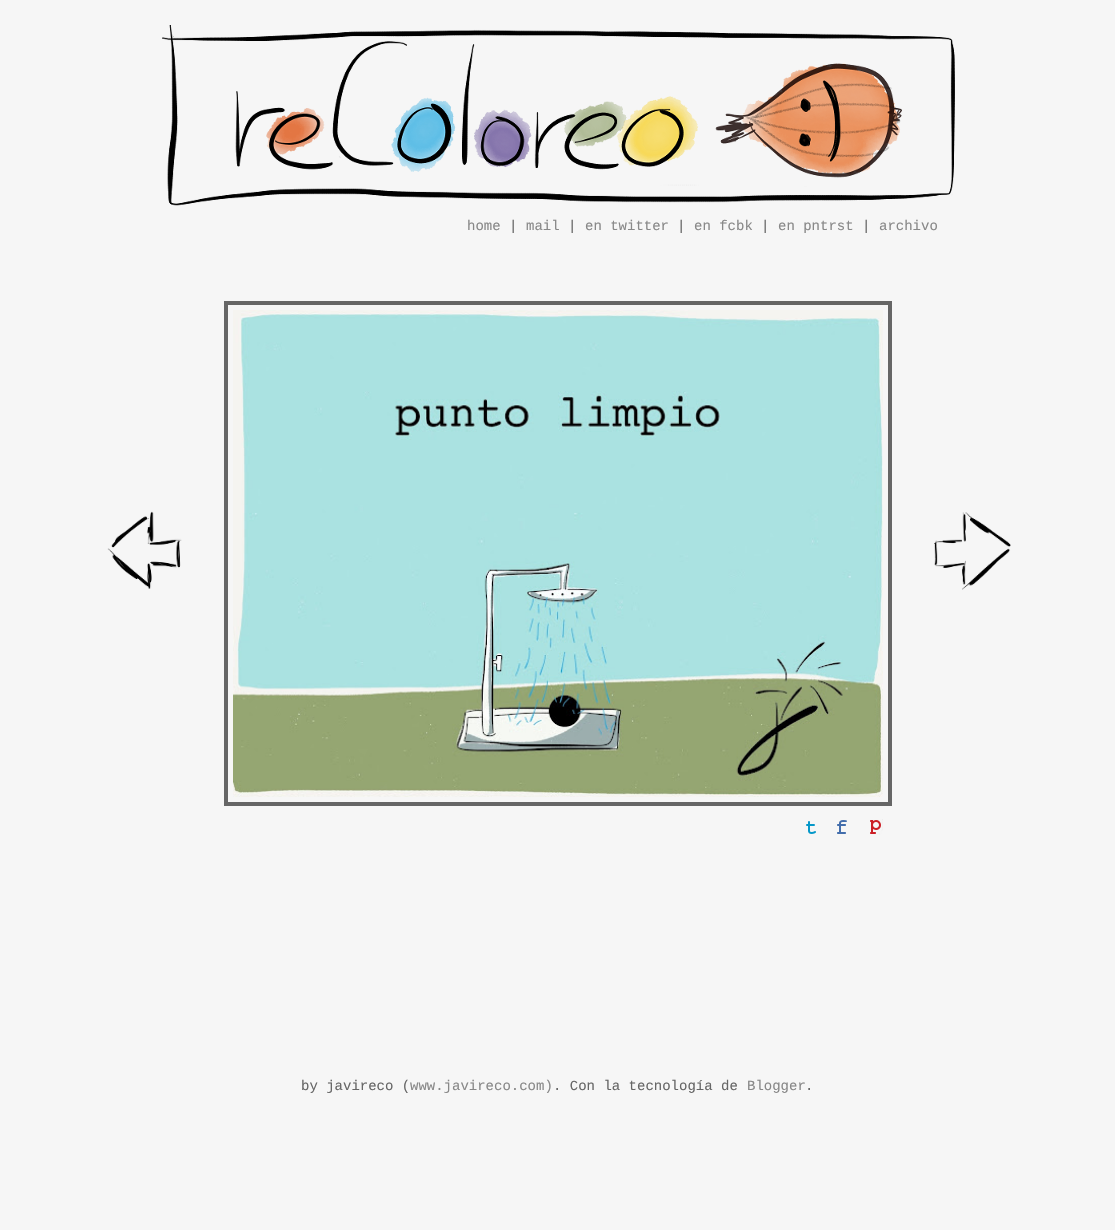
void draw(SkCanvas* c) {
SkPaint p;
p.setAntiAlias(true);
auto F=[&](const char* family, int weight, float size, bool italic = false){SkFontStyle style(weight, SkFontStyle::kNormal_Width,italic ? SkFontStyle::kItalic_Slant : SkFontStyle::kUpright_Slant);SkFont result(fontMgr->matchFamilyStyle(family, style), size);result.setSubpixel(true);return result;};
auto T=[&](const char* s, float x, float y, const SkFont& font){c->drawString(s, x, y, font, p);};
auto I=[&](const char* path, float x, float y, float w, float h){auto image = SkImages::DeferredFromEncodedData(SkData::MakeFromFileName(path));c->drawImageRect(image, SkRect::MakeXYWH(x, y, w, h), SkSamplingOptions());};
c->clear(0xfff6f6f6);
I("1.png",162,25,793,181);
auto f1 = F("Liberation Mono",400,14);
p.setColor(0xff888888);
T("home",467,230,f1);
p.setColor(0xff666666);
T("|",509,230,f1);
p.setColor(0xff888888);
T("mail",526,230,f1);
p.setColor(0xff666666);
T("|",568,230,f1);
p.setColor(0xff888888);
T("en twitter",585,230,f1);
p.setColor(0xff666666);
T("|",677,230,f1);
p.setColor(0xff888888);
T("en fcbk",694,230,f1);
p.setColor(0xff666666);
T("|",761,230,f1);
p.setColor(0xff888888);
T("en pntrst",778,230,f1);
p.setColor(0xff666666);
T("|",862,230,f1);
p.setColor(0xff888888);
T("archivo",879,230,f1);
p.setStroke(true);
p.setStrokeWidth(4);
p.setColor(0xff666666);
c->drawRect(SkRect::MakeXYWH(226,303,664,501),p);
I("2.png",233,310,650,487);
I("3.png",806,821,10,13);
I("4.png",837,820,10,14);
I("5.png",870,819,13,16);
I("6.png",107,511,75,78);
I("7.png",934,512,77,78);
p.setStroke(false);
T("by javireco (",301,1090,f1);
p.setColor(0xff888888);
T("www.javireco.com)",410,1090,f1);
p.setColor(0xff666666);
T(". Con la tecnología de",553,1090,f1);
p.setColor(0xff888888);
T("Blogger",747,1090,f1);
p.setColor(0xff666666);
T(".",805,1090,f1);
}
